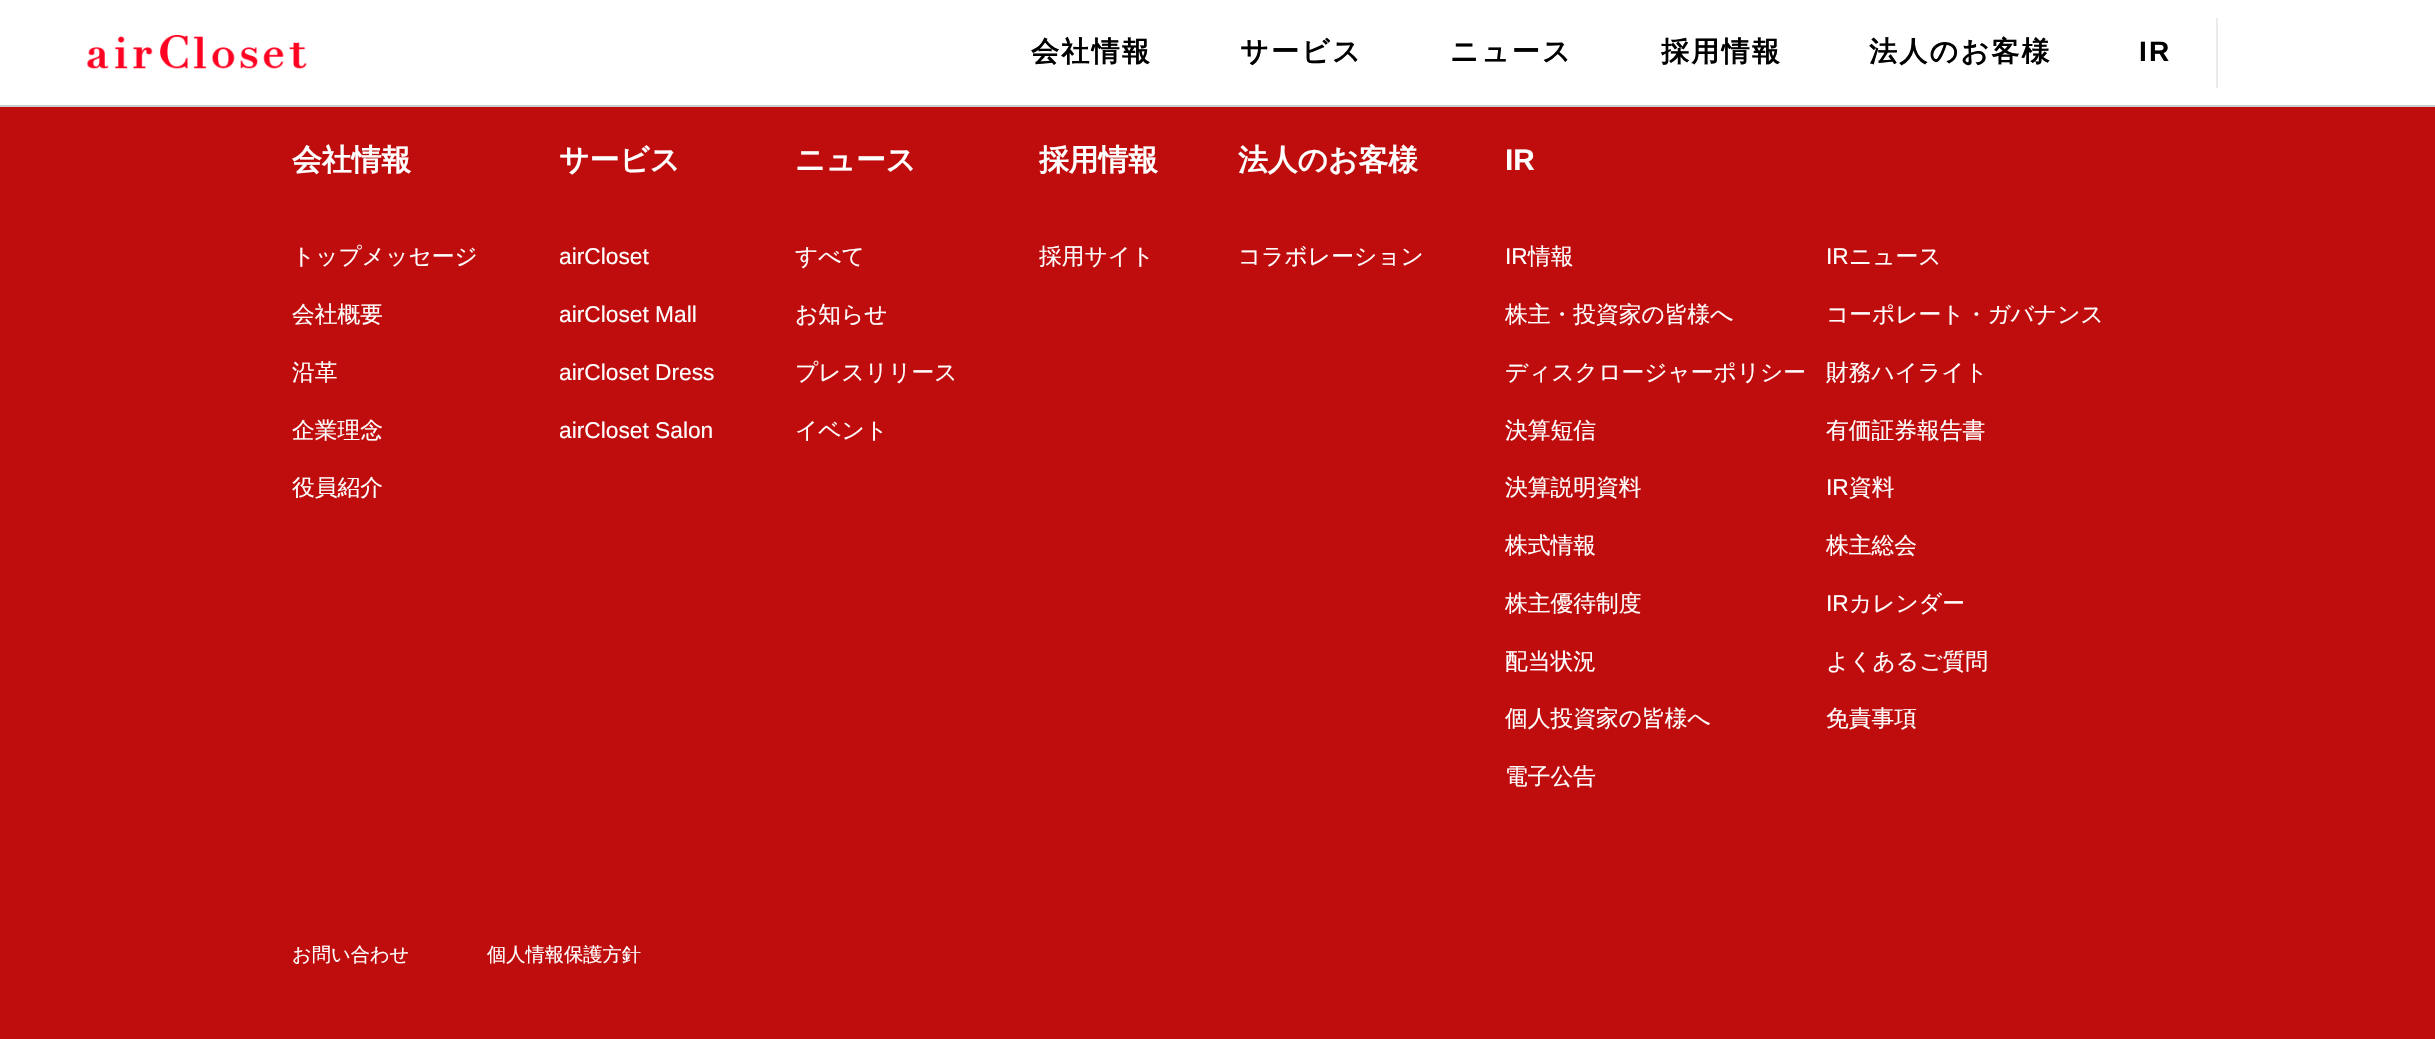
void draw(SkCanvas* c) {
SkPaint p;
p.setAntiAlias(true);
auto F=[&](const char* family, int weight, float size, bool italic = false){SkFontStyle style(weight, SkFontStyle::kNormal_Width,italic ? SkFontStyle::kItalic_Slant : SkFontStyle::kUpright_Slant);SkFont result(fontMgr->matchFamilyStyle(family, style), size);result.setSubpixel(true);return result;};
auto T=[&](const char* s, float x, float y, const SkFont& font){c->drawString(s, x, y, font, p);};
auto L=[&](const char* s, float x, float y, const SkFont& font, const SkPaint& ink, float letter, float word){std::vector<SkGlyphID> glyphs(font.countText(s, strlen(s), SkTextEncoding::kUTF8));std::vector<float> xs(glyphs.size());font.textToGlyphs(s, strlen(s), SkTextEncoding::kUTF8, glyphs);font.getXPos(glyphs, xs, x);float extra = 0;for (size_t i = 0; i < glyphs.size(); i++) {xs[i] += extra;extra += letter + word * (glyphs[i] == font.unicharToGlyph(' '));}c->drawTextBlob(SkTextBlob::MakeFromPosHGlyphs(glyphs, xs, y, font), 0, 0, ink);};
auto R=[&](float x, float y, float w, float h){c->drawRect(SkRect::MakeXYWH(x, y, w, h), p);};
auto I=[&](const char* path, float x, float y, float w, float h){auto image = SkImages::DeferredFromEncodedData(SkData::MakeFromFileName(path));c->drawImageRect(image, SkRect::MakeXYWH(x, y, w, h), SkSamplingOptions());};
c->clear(0xffbf0c0c);
p.setColor(0xffffffff);
R(0,0,2435,105);
p.setColor(0xffcccccc);
R(0,105,2435,2);
I("1.png",87,35,220,34);
auto f1 = F("WenQuanYi Zen Hei",700,28);
p.setColor(0xff000000);
L("会社情報",1031,61,f1,p,2.25,0);
L("サービス",1240,61,f1,p,2.25,0);
L("ニュース",1450,61,f1,p,2.25,0);
L("採用情報",1661,61,f1,p,2.25,0);
L("法人のお客様",1869,61,f1,p,2.25,0);
auto f2 = F("Liberation Sans",700,28);
L("IR",2139,61,f2,p,2.25,0);
p.setColor(0xffebebeb);
R(2216,18,2,70);
auto f3 = F("WenQuanYi Zen Hei",700,29.75);
p.setColor(0xffffffff);
T("会社情報",292,170,f3);
auto f4 = F("WenQuanYi Zen Hei",500,22.75);
T("トップメッセージ",292,264,f4);
T("会社概要",292,322,f4);
T("沿革",292,380,f4);
T("企業理念",292,438,f4);
T("役員紹介",292,495,f4);
T("サービス",559,170,f3);
auto f5 = F("Liberation Sans",400,22.75);
T("airCloset",559,264,f5);
T("airCloset Mall",559,322,f5);
T("airCloset Dress",559,380,f5);
T("airCloset Salon",559,438,f5);
T("ニュース",795,170,f3);
T("すべて",795,264,f4);
T("お知らせ",795,322,f4);
T("プレスリリース",795,380,f4);
T("イベント",795,438,f4);
T("採用情報",1039,170,f3);
T("採用サイト",1039,264,f4);
T("法人のお客様",1238,170,f3);
T("コラボレーション",1238,264,f4);
auto f6 = F("Liberation Sans",700,29.75);
T("IR",1505,170,f6);
T("IR",1505,264,f5);
T("情報",1528,264,f4);
T("IR",1826,264,f5);
T("ニュース",1849,264,f4);
T("株主・投資家の皆様へ",1505,322,f4);
T("コーポレート・ガバナンス",1826,322,f4);
T("ディスクロージャーポリシー",1505,380,f4);
T("財務ハイライト",1826,380,f4);
T("決算短信",1505,438,f4);
T("有価証券報告書",1826,438,f4);
T("決算説明資料",1505,495,f4);
T("IR",1826,495,f5);
T("資料",1849,495,f4);
T("株式情報",1505,553,f4);
T("株主総会",1826,553,f4);
T("株主優待制度",1505,611,f4);
T("IR",1826,611,f5);
T("カレンダー",1849,611,f4);
T("配当状況",1505,669,f4);
T("よくあるご質問",1826,669,f4);
T("個人投資家の皆様へ",1505,726,f4);
T("免責事項",1826,726,f4);
T("電子公告",1505,784,f4);
auto f7 = F("WenQuanYi Zen Hei",500,19.25);
T("お問い合わせ",292,961,f7);
T("個人情報保護方針",487,961,f7);
}
